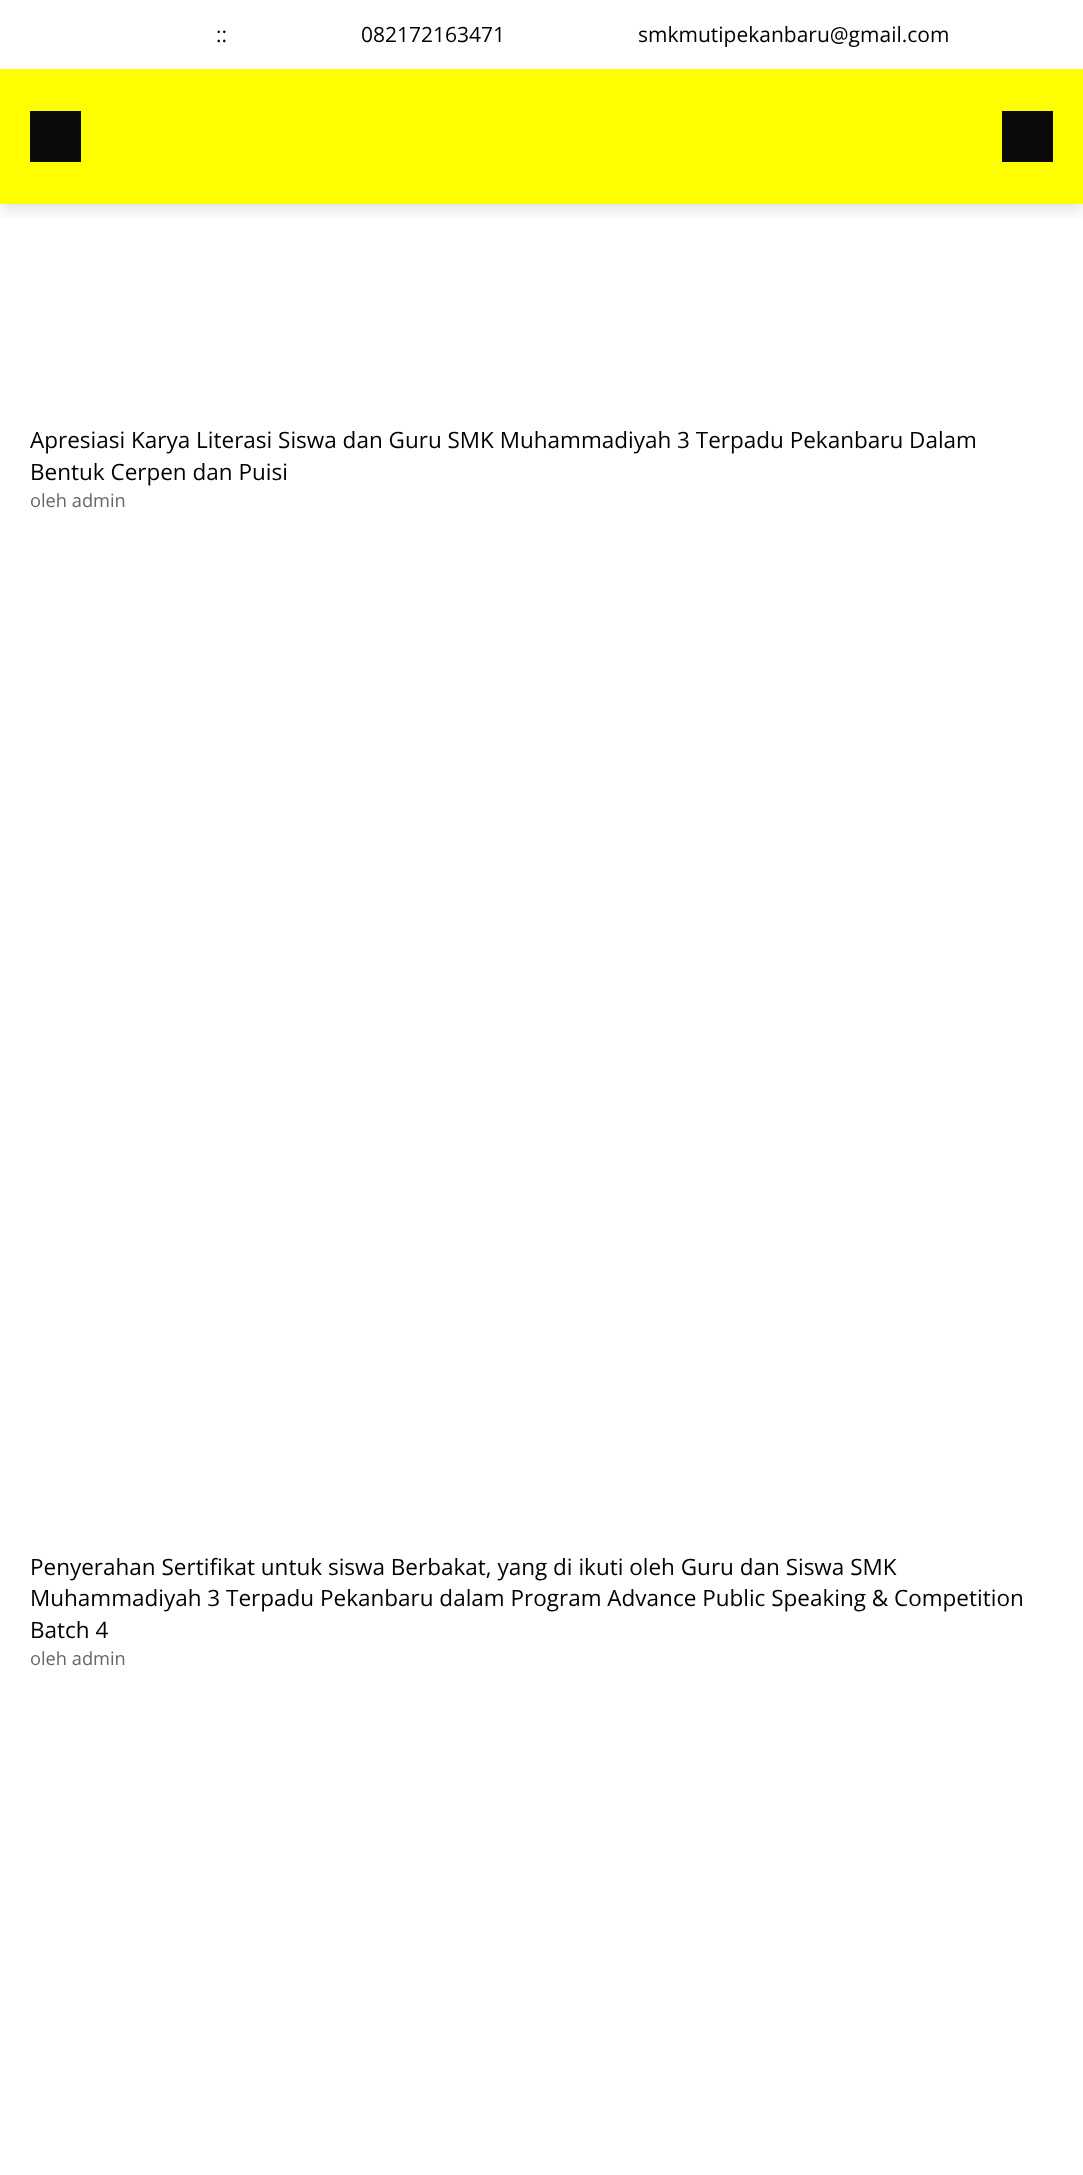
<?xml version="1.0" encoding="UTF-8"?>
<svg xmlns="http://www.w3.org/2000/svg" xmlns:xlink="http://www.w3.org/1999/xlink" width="1083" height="2175">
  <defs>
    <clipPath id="clip1"><rect x="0" y="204" width="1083" height="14" /></clipPath>
  </defs>
  <rect width="100%" height="100%" fill="#ffffff" />
  <g clip-path="url(#clip1)">
    <rect width="1083" height="204" fill="#000000" fill-opacity="0.2" filter="blur(11px)" />
  </g>
  <rect y="69" width="1083" height="135" fill="#ffff00" />
  <rect x="30" y="111" width="51" height="51" fill="#0a0a0a" />
  <rect x="1002" y="111" width="51" height="51" fill="#0a0a0a" />
  <text x="216" y="42" style="font-family: Open Sans; font-size: 21px; fill: #000000">::</text>
  <text x="361" y="42" style="font-family: Open Sans; font-size: 21px; fill: #000000">082172163471</text>
  <text x="638" y="42" style="font-family: Open Sans; font-size: 21px; fill: #000000">smkmutipekanbaru@gmail.com</text>
  <text x="30" y="448" style="font-family: Open Sans; font-size: 22.5px; fill: #000000">Apresiasi Karya Literasi Siswa dan Guru SMK Muhammadiyah 3 Terpadu Pekanbaru Dalam</text>
  <text x="30" y="480" style="font-family: Open Sans; font-size: 22.5px; fill: #000000">Bentuk Cerpen dan Puisi</text>
  <text x="30" y="507" style="font-family: Open Sans; font-size: 18.25px; fill: #666666">oleh admin</text>
  <text x="30" y="1575" style="font-family: Open Sans; font-size: 22.5px; fill: #000000">Penyerahan Sertifikat untuk siswa Berbakat, yang di ikuti oleh Guru dan Siswa SMK</text>
  <text x="30" y="1606" style="font-family: Open Sans; font-size: 22.5px; fill: #000000">Muhammadiyah 3 Terpadu Pekanbaru dalam Program Advance Public Speaking &amp; Competition</text>
  <text x="30" y="1638" style="font-family: Open Sans; font-size: 22.5px; fill: #000000">Batch 4</text>
  <text x="30" y="1665" style="font-family: Open Sans; font-size: 18.25px; fill: #666666">oleh admin</text>
</svg>
